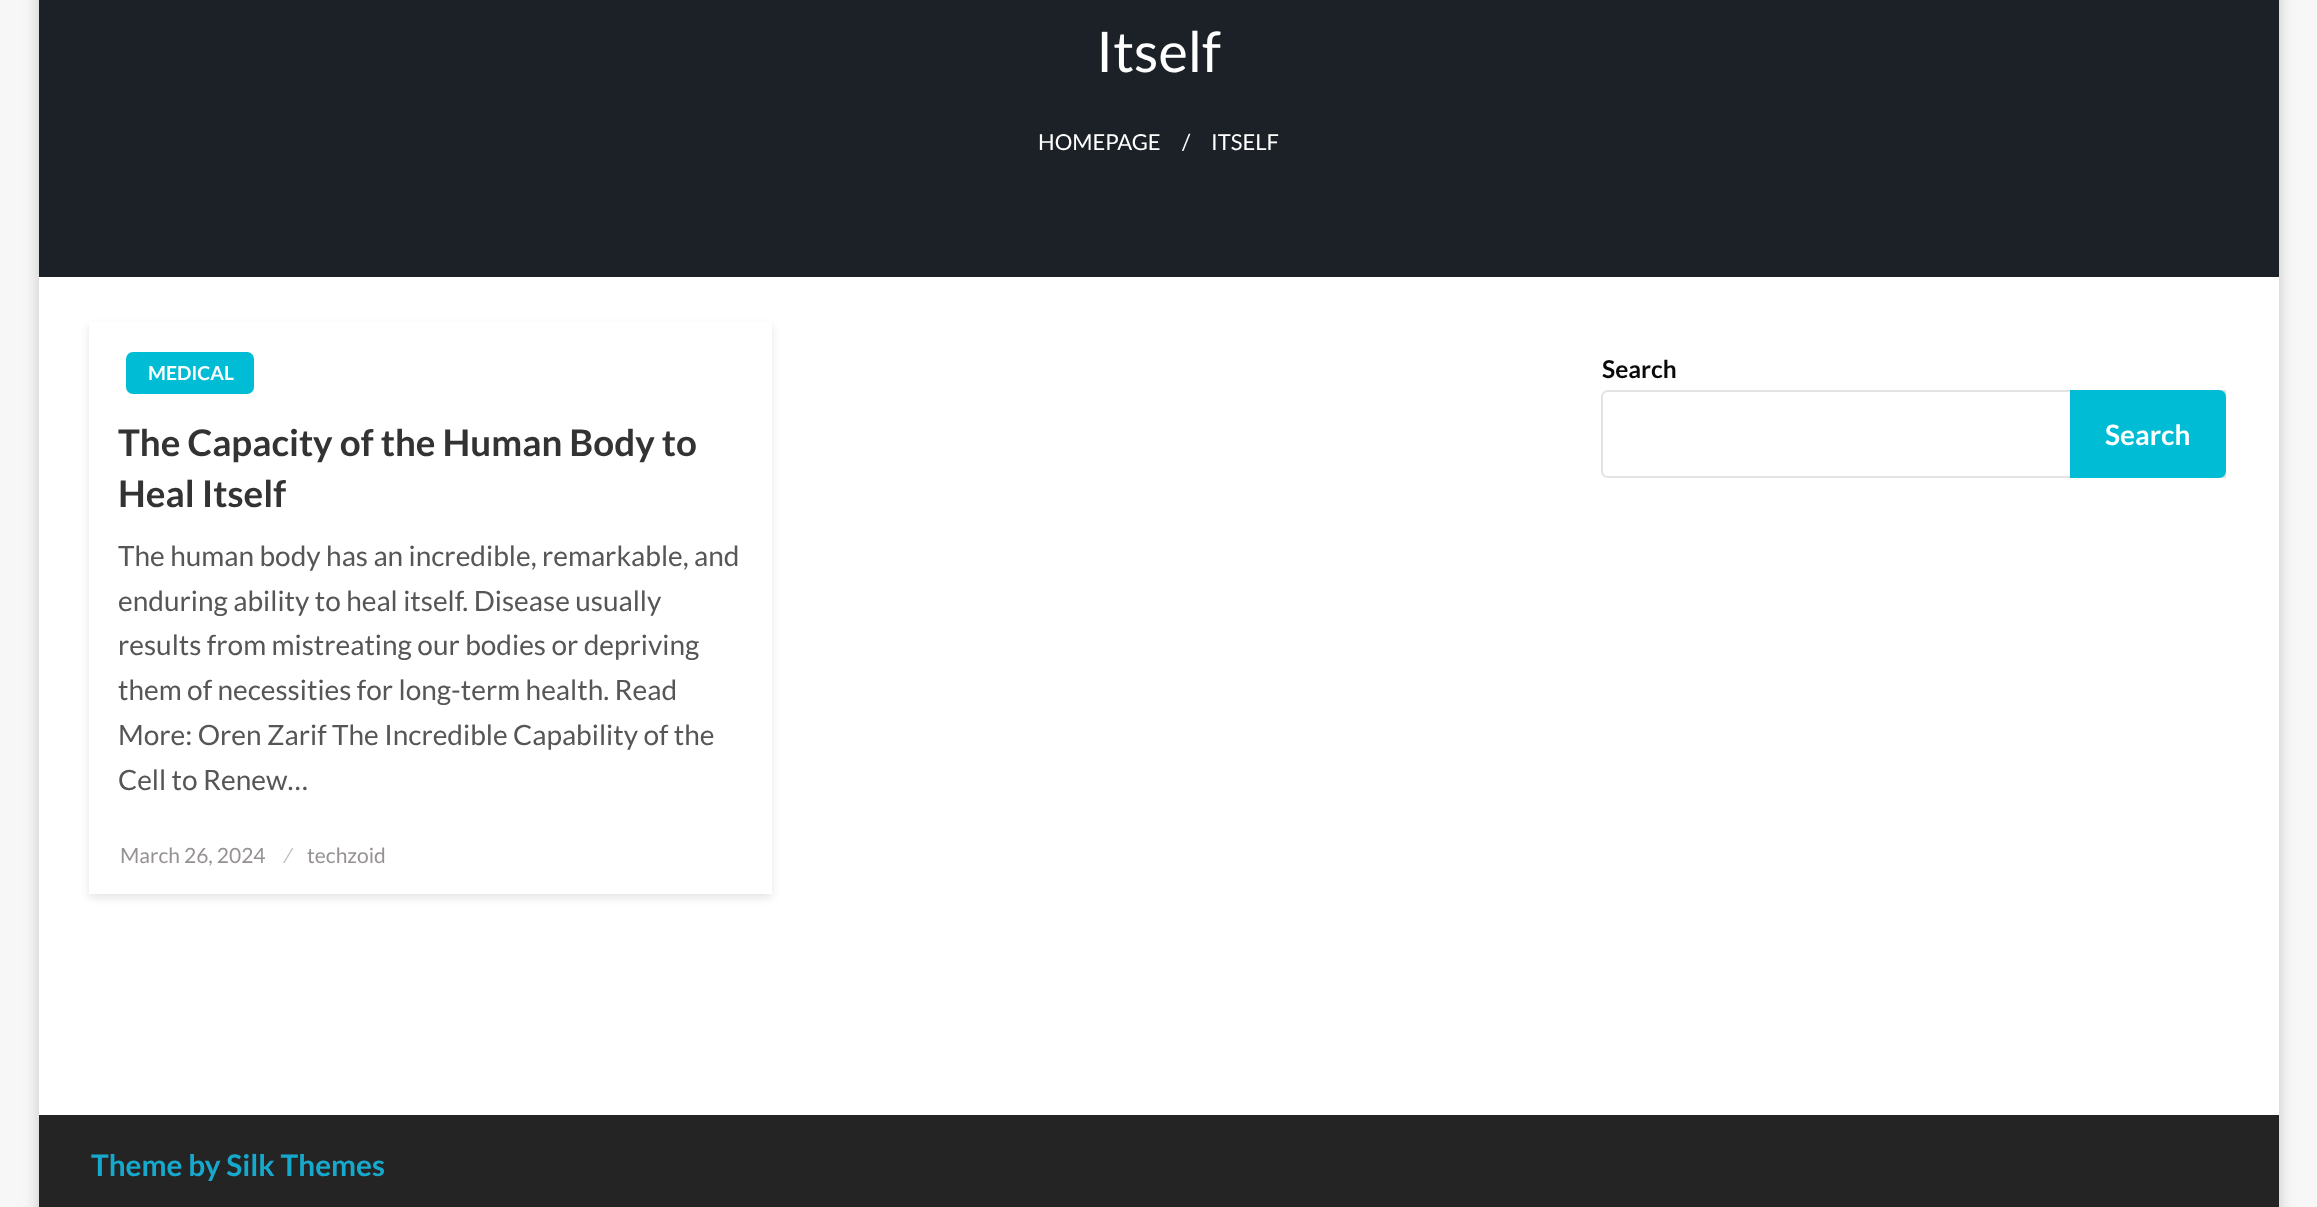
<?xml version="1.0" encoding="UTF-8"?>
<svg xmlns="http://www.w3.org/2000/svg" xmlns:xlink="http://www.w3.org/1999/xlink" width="2317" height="1207">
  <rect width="100%" height="100%" fill="#f7f7f7" />
  <rect x="39" y="-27" width="2240" height="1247" fill="#000000" fill-opacity="0.09" filter="blur(9px)" />
  <rect x="39" y="-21" width="2240" height="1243" fill="#000000" fill-opacity="0.1" filter="blur(7px)" />
  <rect x="39" y="277" width="2240" height="838" fill="#ffffff" />
  <rect x="39" width="2240" height="277" fill="#1c2127" />
  <rect x="89" y="326" width="683" height="572" fill="#000000" fill-opacity="0.1" filter="blur(4.5px)" />
  <rect x="89" y="322" width="683" height="572" fill="#ffffff" />
  <rect x="126" y="352" width="128" height="42" rx="7" fill="#00bcd4" />
  <path d="M 1608 391 h 617 v 86 h -617 c -3.5 0 -6 -2.5 -6 -6 v -74 c 0 -3.5 2.5 -6 6 -6 z" fill="none" stroke="#e4e3e3" stroke-width="2" />
  <path d="M 2070 390 h 149 c 4 0 7 3 7 7 v 74 c 0 4 -3 7 -7 7 h -149 z" fill="#00bcd4" />
  <rect x="39" y="1115" width="2240" height="92" fill="#242424" />
  <text x="1096" y="72" style="font-family: Lato; font-size: 56px; fill: #ffffff">Itself</text>
  <text x="1038" y="150" style="font-family: Lato; font-size: 22px; fill: #ffffff">HOMEPAGE</text>
  <text x="1182" y="150" style="font-family: Lato; font-size: 22px; fill: #ffffff">/</text>
  <text x="1211" y="150" style="font-family: Lato; font-size: 22px; fill: #ffffff">ITSELF</text>
  <text x="148" y="380" style="font-family: Lato; font-size: 19.25px; font-weight: bold; fill: #ffffff">MEDICAL</text>
  <text x="118" y="456" style="font-family: Lato; font-size: 36.75px; font-weight: bold; fill: #333333">The Capacity of the Human Body to</text>
  <text x="118" y="507" style="font-family: Lato; font-size: 36.75px; font-weight: bold; fill: #333333">Heal Itself</text>
  <text x="118" y="566" style="font-family: Lato; font-size: 28px; fill: #565656">The human body has an incredible, remarkable, and</text>
  <text x="118" y="611" style="font-family: Lato; font-size: 28px; fill: #565656">enduring ability to heal itself. Disease usually</text>
  <text x="118" y="655" style="font-family: Lato; font-size: 28px; fill: #565656">results from mistreating our bodies or depriving</text>
  <text x="118" y="700" style="font-family: Lato; font-size: 28px; fill: #565656">them of necessities for long-term health. Read</text>
  <text x="118" y="745" style="font-family: Lato; font-size: 28px; fill: #565656">More: Oren Zarif The Incredible Capability of the</text>
  <text x="118" y="790" style="font-family: Lato; font-size: 28px; fill: #565656">Cell to Renew…</text>
  <text x="120" y="863" style="font-family: Lato; font-size: 21px; fill: #969292">March 26, 2024</text>
  <text x="285" y="863" style="font-family: Lato; font-size: 21px; fill: #c0c0c0">⁄</text>
  <text x="307" y="863" style="font-family: Lato; font-size: 21px; fill: #969292">techzoid</text>
  <text x="1602" y="378" style="font-family: Lato; font-size: 24.5px; font-weight: bold; fill: #0a0a0a">Search</text>
  <text x="2105" y="445" style="font-family: Lato; font-size: 28px; font-weight: bold; fill: #ffffff">Search</text>
  <text x="91" y="1176" style="font-family: Lato; font-size: 29.75px; font-weight: bold; fill: #17a9cd">Theme by Silk Themes</text>
</svg>
